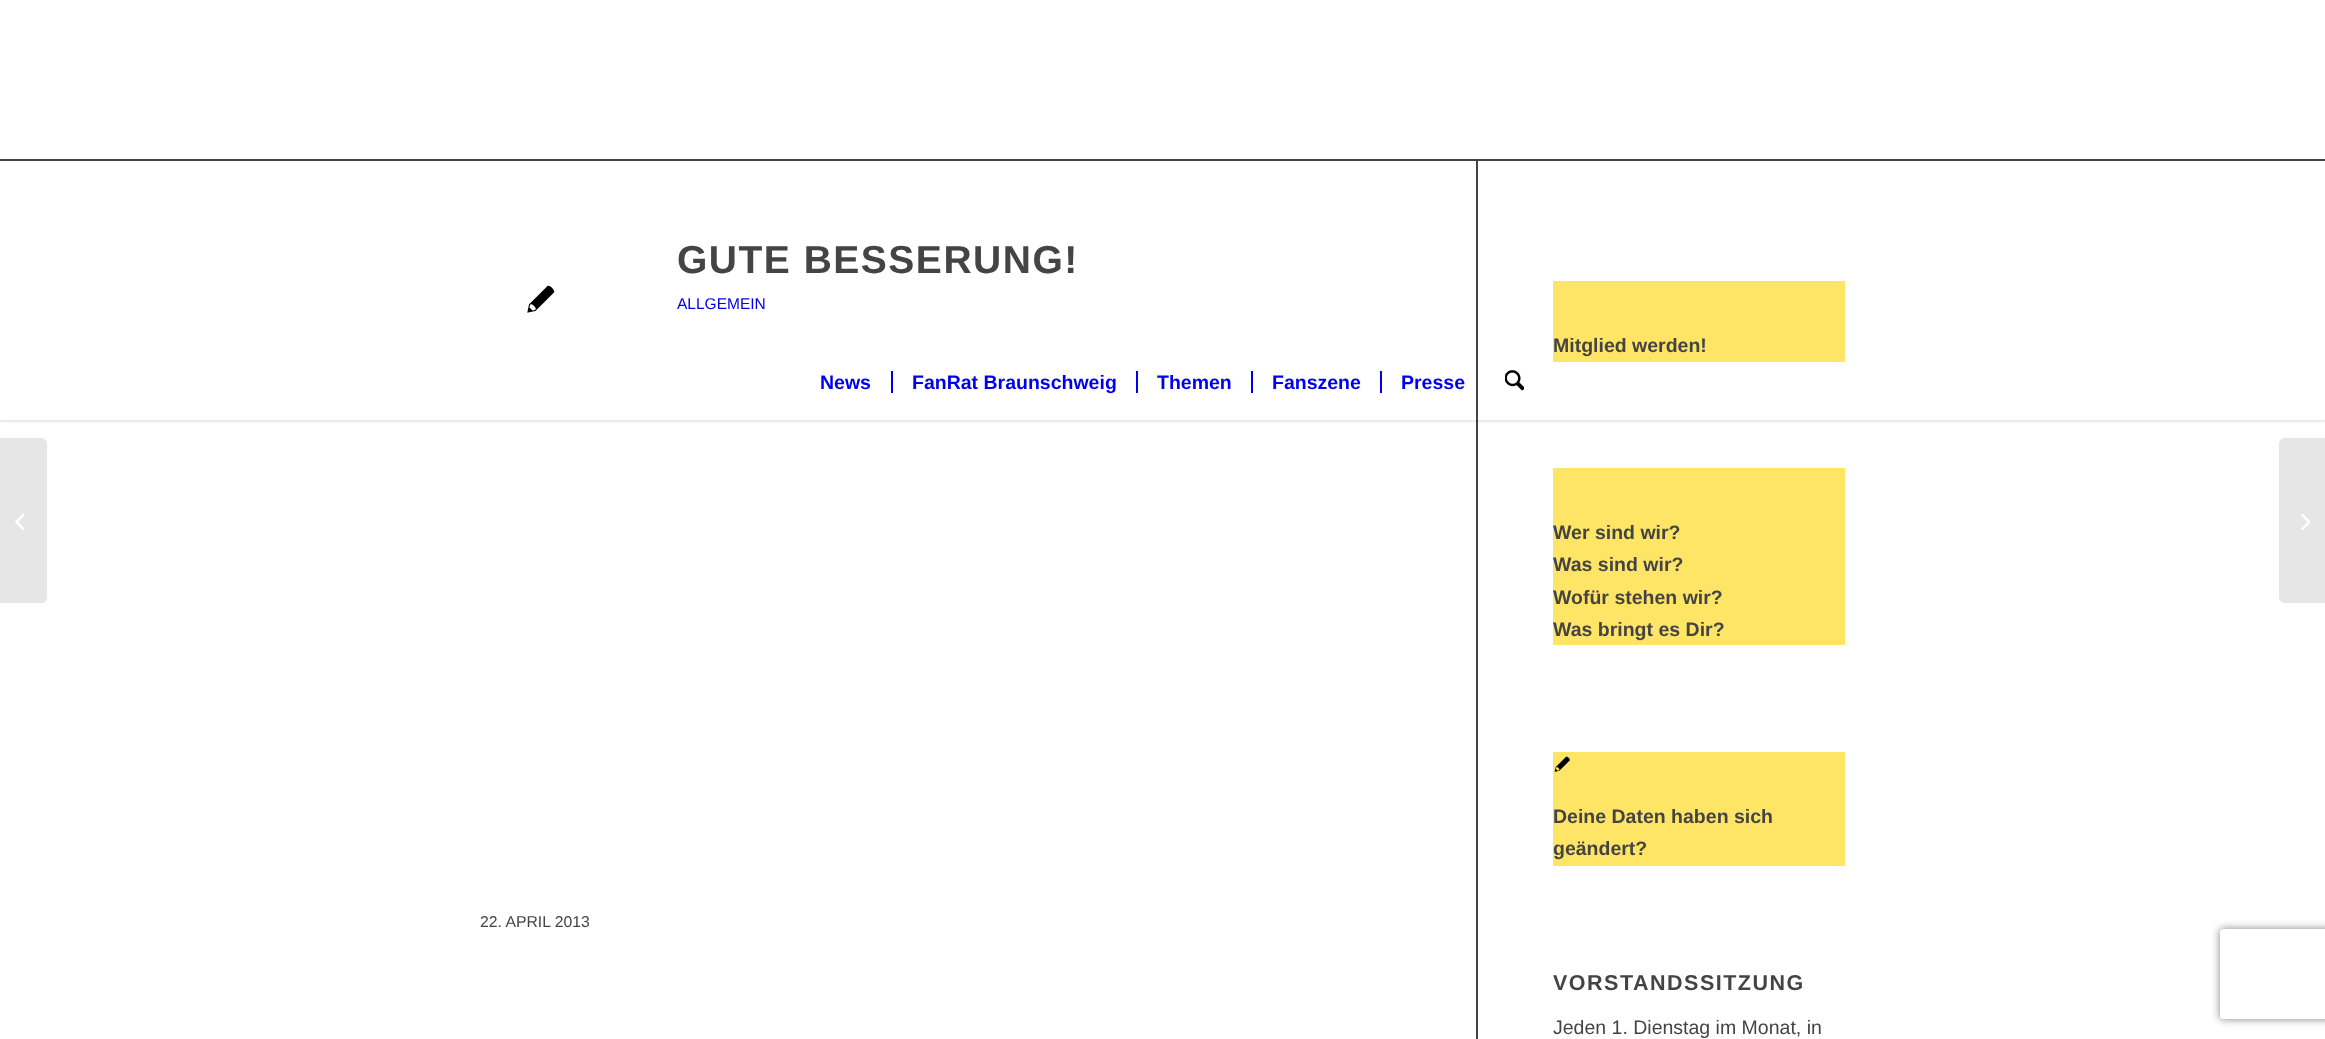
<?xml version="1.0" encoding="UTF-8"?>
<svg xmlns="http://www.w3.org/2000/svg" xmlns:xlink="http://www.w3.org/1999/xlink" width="2325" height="1039">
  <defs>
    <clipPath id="clip1"><rect x="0" y="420" width="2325" height="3" /></clipPath>
    <clipPath id="clip2"><path d="M 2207 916 h 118 v 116 h -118 z m 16 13 h 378 c 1.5 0 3 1.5 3 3 v 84 c 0 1.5 -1.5 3 -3 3 h -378 c -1.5 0 -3 -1.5 -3 -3 v -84 c 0 -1.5 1.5 -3 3 -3 z" clip-rule="evenodd" /></clipPath>
  </defs>
  <rect width="100%" height="100%" fill="#ffffff" />
  <rect y="159" width="2325" height="2" fill="#444444" />
  <rect x="1476" y="161" width="2" height="878" fill="#444444" />
  <image x="527" y="285" width="28" height="28" xlink:href="image1.png" />
  <rect x="1553" y="281" width="292" height="81" fill="#ffe566" />
  <rect x="1553" y="468" width="292" height="177" fill="#ffe566" />
  <rect x="1553" y="752" width="292" height="114" fill="#ffe566" />
  <image x="1554" y="756" width="16" height="16" xlink:href="image2.png" />
  <g clip-path="url(#clip1)">
    <rect x="-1" y="-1" width="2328" height="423" fill="#000000" fill-opacity="0.1" filter="blur(1.5px)" />
  </g>
  <rect x="891" y="371" width="2" height="22" fill="#0000ee" />
  <rect x="1136" y="371" width="2" height="22" fill="#0000ee" />
  <rect x="1251" y="371" width="2" height="22" fill="#0000ee" />
  <rect x="1380" y="371" width="2" height="22" fill="#0000ee" />
  <image x="1505" y="370" width="19" height="21" xlink:href="image3.png" />
  <path d="M 0 438 h 41 c 3.5 0 6 2.5 6 6 v 153 c 0 3.5 -2.5 6 -6 6 h -41 z" fill="#e6e6e6" />
  <image x="15" y="513" width="9" height="18" xlink:href="image4.png" />
  <path d="M 2285 438 h 40 v 165 h -40 c -3.5 0 -6 -2.5 -6 -6 v -153 c 0 -3.5 2.5 -6 6 -6 z" fill="#e6e6e6" />
  <image x="2301" y="513" width="9" height="18" xlink:href="image5.png" />
  <g clip-path="url(#clip2)">
    <rect x="2220" y="929" width="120" height="90" rx="3" fill="#808080" filter="blur(4px)" />
  </g>
  <text x="677" y="273" style="font-family: Liberation Sans; font-size: 39px; font-weight: bold; letter-spacing: 1.5px; fill: #444444">GUTE BESSERUNG!</text>
  <text x="677" y="309" style="font-family: Liberation Sans; font-size: 15.5px; fill: #0000ee">ALLGEMEIN</text>
  <text x="480" y="927" style="font-family: Liberation Sans; font-size: 15.75px; fill: #444444">22. APRIL 2013</text>
  <text x="1553" y="352" style="font-family: Liberation Sans; font-size: 19.5px; font-weight: bold; fill: #444444">Mitglied werden!</text>
  <text x="1553" y="539" style="font-family: Liberation Sans; font-size: 19.5px; font-weight: bold; fill: #444444">Wer sind wir?</text>
  <text x="1553" y="571" style="font-family: Liberation Sans; font-size: 19.5px; font-weight: bold; fill: #444444">Was sind wir?</text>
  <text x="1553" y="604" style="font-family: Liberation Sans; font-size: 19.5px; font-weight: bold; fill: #444444">Wofür stehen wir?</text>
  <text x="1553" y="636" style="font-family: Liberation Sans; font-size: 19.5px; font-weight: bold; fill: #444444">Was bringt es Dir?</text>
  <text x="1553" y="823" style="font-family: Liberation Sans; font-size: 19.5px; font-weight: bold; fill: #444444">Deine Daten haben sich</text>
  <text x="1553" y="855" style="font-family: Liberation Sans; font-size: 19.5px; font-weight: bold; fill: #444444">geändert?</text>
  <text x="1553" y="990" style="font-family: Liberation Sans; font-size: 21.5px; font-weight: bold; letter-spacing: 1.5px; fill: #444444">VORSTANDSSITZUNG</text>
  <text x="1553" y="1034" style="font-family: Liberation Sans; font-size: 19.5px; fill: #444444">Jeden 1. Dienstag im Monat, in</text>
  <text x="820" y="389" style="font-family: Liberation Sans; font-size: 19.5px; font-weight: bold; fill: #0000ee">News</text>
  <text x="912" y="389" style="font-family: Liberation Sans; font-size: 19.5px; font-weight: bold; fill: #0000ee">FanRat Braunschweig</text>
  <text x="1157" y="389" style="font-family: Liberation Sans; font-size: 19.5px; font-weight: bold; fill: #0000ee">Themen</text>
  <text x="1272" y="389" style="font-family: Liberation Sans; font-size: 19.5px; font-weight: bold; fill: #0000ee">Fanszene</text>
  <text x="1401" y="389" style="font-family: Liberation Sans; font-size: 19.5px; font-weight: bold; fill: #0000ee">Presse</text>
</svg>
